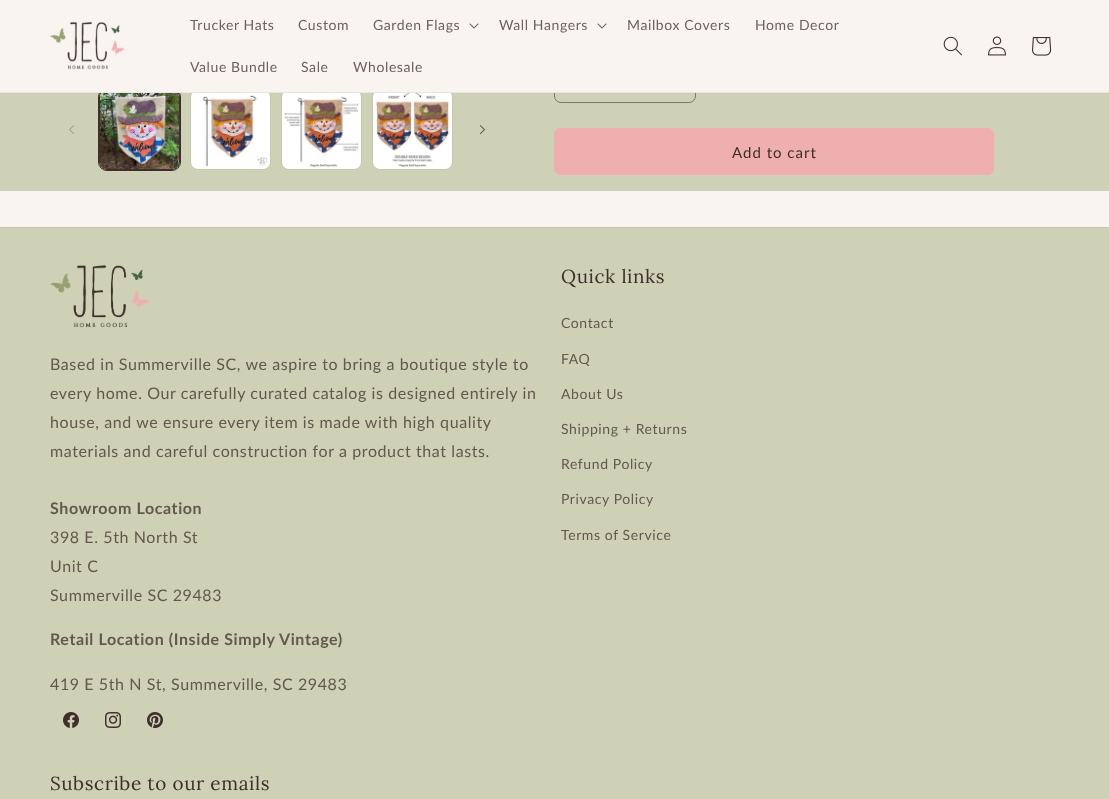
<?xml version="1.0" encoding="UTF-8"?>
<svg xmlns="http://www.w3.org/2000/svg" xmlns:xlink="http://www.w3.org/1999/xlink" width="1109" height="799">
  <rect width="100%" height="100%" fill="#ced1b6" />
  <rect x="98.5" y="88.5" width="82" height="82" rx="8.5" fill="none" stroke="#3f2e2b" />
  <rect x="99.5" y="89.5" width="80" height="80" rx="7.5" fill="none" stroke="#3f2e2b" />
  <rect x="190.5" y="89.5" width="80" height="80" rx="7.5" fill="none" stroke="#c7c9af" />
  <rect x="281.5" y="89.5" width="80" height="80" rx="7.5" fill="none" stroke="#c7c9af" />
  <rect x="372.5" y="89.5" width="80" height="80" rx="7.5" fill="none" stroke="#c7c9af" />
  <rect x="554.5" y="56.5" width="141" height="46" rx="6.5" fill="none" stroke="#7f776a" />
  <rect width="1109" height="92" fill="#f9f4ef" />
  <rect y="92" width="1109" height="1" fill="#eae4df" />
  <image x="50" y="21" width="75" height="49" xlink:href="image1.png" />
  <image x="469" y="23" width="10" height="6" xlink:href="image2.png" />
  <image x="597" y="23" width="10" height="6" xlink:href="image2.png" />
  <image x="943" y="36" width="19" height="20" xlink:href="image3.png" />
  <image x="988" y="36" width="18" height="20" xlink:href="image4.png" />
  <image x="1032" y="37" width="20" height="19" xlink:href="image5.png" />
  <image x="69" y="125" width="5" height="9" xlink:href="image6.png" />
  <image x="100" y="93" width="79" height="76" xlink:href="image7.png" />
  <image x="191" y="93" width="79" height="76" xlink:href="image8.png" />
  <image x="282" y="93" width="79" height="76" xlink:href="image9.png" />
  <image x="373" y="93" width="79" height="76" xlink:href="image10.png" />
  <image x="480" y="125" width="5" height="10" xlink:href="image11.png" />
  <rect x="554" y="128" width="440" height="47" rx="7" fill="#efafae" />
  <rect x="554.5" y="128.5" width="439" height="46" rx="6.5" fill="none" stroke="#efafae" />
  <rect y="191" width="1109" height="36" fill="#f9f4ef" />
  <rect y="227" width="1109" height="1" fill="#c3c4ab" />
  <image x="50" y="265" width="100" height="63" xlink:href="image12.png" />
  <image x="63" y="712" width="16" height="16" xlink:href="image13.png" />
  <image x="105" y="712" width="16" height="16" xlink:href="image14.png" />
  <image x="147" y="712" width="16" height="16" xlink:href="image15.png" />
  <text x="190" y="30" style="font-family: Lato; font-size: 14px; letter-spacing: 0.6px; fill: #6e605c">Trucker Hats</text>
  <text x="298" y="30" style="font-family: Lato; font-size: 14px; letter-spacing: 0.6px; fill: #6e605c">Custom</text>
  <text x="373" y="30" style="font-family: Lato; font-size: 14px; letter-spacing: 0.6px; fill: #6e605c">Garden Flags</text>
  <text x="499" y="30" style="font-family: Lato; font-size: 14px; letter-spacing: 0.6px; fill: #6e605c">Wall Hangers</text>
  <text x="627" y="30" style="font-family: Lato; font-size: 14px; letter-spacing: 0.6px; fill: #6e605c">Mailbox Covers</text>
  <text x="755" y="30" style="font-family: Lato; font-size: 14px; letter-spacing: 0.6px; fill: #6e605c">Home Decor</text>
  <text x="190" y="72" style="font-family: Lato; font-size: 14px; letter-spacing: 0.6px; fill: #6e605c">Value Bundle</text>
  <text x="301" y="72" style="font-family: Lato; font-size: 14px; letter-spacing: 0.6px; fill: #6e605c">Sale</text>
  <text x="353" y="72" style="font-family: Lato; font-size: 14px; letter-spacing: 0.6px; fill: #6e605c">Wholesale</text>
  <text x="732" y="158" style="font-family: Lato; font-size: 15px; letter-spacing: 1px; fill: #3f2e2b">Add to cart</text>
  <text x="50" y="370" style="font-family: Lato; font-size: 16px; letter-spacing: 0.6px; fill: #63574e">Based in Summerville SC, we aspire to bring a boutique style to</text>
  <text x="50" y="399" style="font-family: Lato; font-size: 16px; letter-spacing: 0.6px; fill: #63574e">every home. Our carefully curated catalog is designed entirely in</text>
  <text x="50" y="428" style="font-family: Lato; font-size: 16px; letter-spacing: 0.6px; fill: #63574e">house, and we ensure every item is made with high quality</text>
  <text x="50" y="457" style="font-family: Lato; font-size: 16px; letter-spacing: 0.6px; fill: #63574e">materials and careful construction for a product that lasts.</text>
  <text x="50" y="514" style="font-family: Lato; font-size: 16px; font-weight: bold; letter-spacing: 0.6px; fill: #63574e">Showroom Location</text>
  <text x="50" y="543" style="font-family: Lato; font-size: 16px; letter-spacing: 0.6px; fill: #63574e">398 E. 5th North St</text>
  <text x="50" y="572" style="font-family: Lato; font-size: 16px; letter-spacing: 0.6px; fill: #63574e">Unit C</text>
  <text x="50" y="601" style="font-family: Lato; font-size: 16px; letter-spacing: 0.6px; fill: #63574e">Summerville SC 29483</text>
  <text x="50" y="645" style="font-family: Lato; font-size: 16px; font-weight: bold; letter-spacing: 0.6px; fill: #63574e">Retail Location (Inside Simply Vintage)</text>
  <text x="50" y="690" style="font-family: Lato; font-size: 16px; letter-spacing: 0.6px; fill: #63574e">419 E 5th N St, Summerville, SC 29483</text>
  <text x="561" y="283" style="font-family: Lora; font-size: 18.9px; letter-spacing: 0.6px; fill: #3f2e2b">Quick links</text>
  <text x="561" y="328" style="font-family: Lato; font-size: 14px; letter-spacing: 0.6px; fill: #63574e">Contact</text>
  <text x="561" y="364" style="font-family: Lato; font-size: 14px; letter-spacing: 0.6px; fill: #63574e">FAQ</text>
  <text x="561" y="399" style="font-family: Lato; font-size: 14px; letter-spacing: 0.6px; fill: #63574e">About Us</text>
  <text x="561" y="434" style="font-family: Lato; font-size: 14px; letter-spacing: 0.6px; fill: #63574e">Shipping + Returns</text>
  <text x="561" y="469" style="font-family: Lato; font-size: 14px; letter-spacing: 0.6px; fill: #63574e">Refund Policy</text>
  <text x="561" y="504" style="font-family: Lato; font-size: 14px; letter-spacing: 0.6px; fill: #63574e">Privacy Policy</text>
  <text x="561" y="540" style="font-family: Lato; font-size: 14px; letter-spacing: 0.6px; fill: #63574e">Terms of Service</text>
  <text x="50" y="790" style="font-family: Lora; font-size: 18.9px; letter-spacing: 0.6px; fill: #3f2e2b">Subscribe to our emails</text>
</svg>
